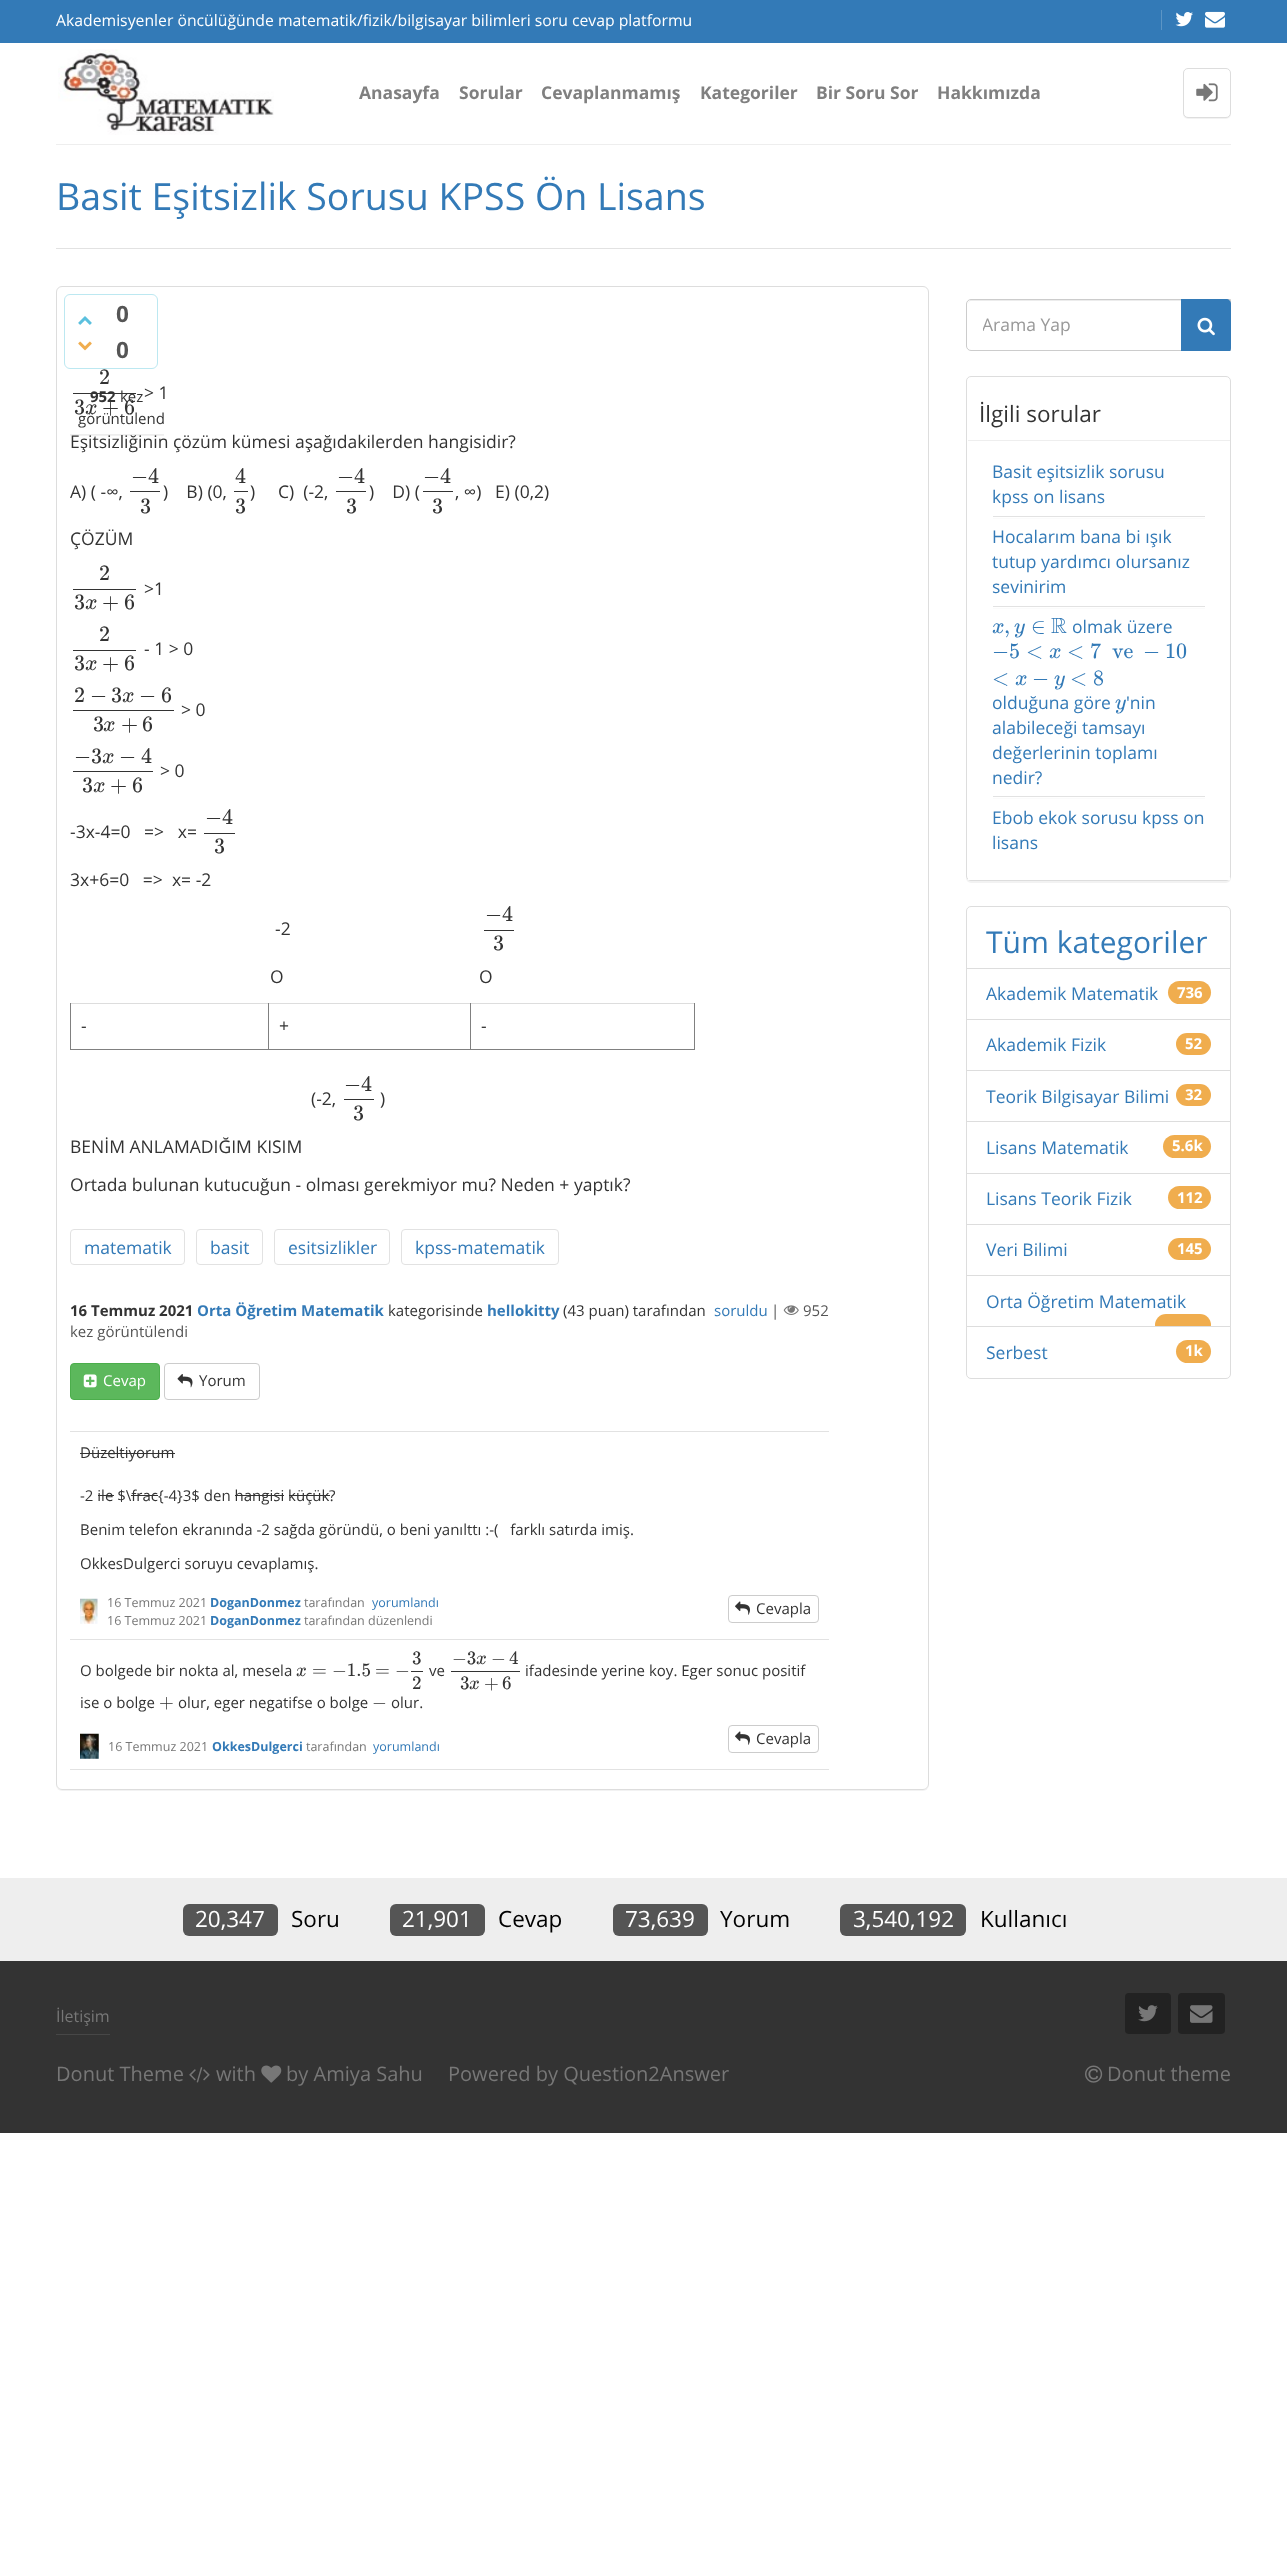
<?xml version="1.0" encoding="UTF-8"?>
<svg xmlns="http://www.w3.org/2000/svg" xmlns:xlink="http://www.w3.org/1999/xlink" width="1287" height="2560">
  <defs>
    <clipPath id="clip1"><path d="M 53 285 h 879 v 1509 h -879 z m 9 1 h 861 c 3.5 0 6 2.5 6 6 v 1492 c 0 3.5 -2.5 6 -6 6 h -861 c -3.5 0 -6 -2.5 -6 -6 v -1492 c 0 -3.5 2.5 -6 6 -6 z" clip-rule="evenodd" /></clipPath>
    <clipPath id="clip2"><rect x="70" y="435" width="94" height="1" /></clipPath>
    <clipPath id="clip3"><rect x="966" y="299" width="265" height="52" /></clipPath>
    <clipPath id="clip4"><rect x="983" y="313" width="191" height="23" /></clipPath>
  </defs>
  <rect width="100%" height="100%" fill="#ffffff" />
  <rect width="1287" height="43" fill="#337ab7" />
  <rect x="1161" y="10" width="1" height="20" fill="#5c95c5" />
  <image x="1175" y="12" width="18" height="15" xlink:href="image1.png" />
  <image x="1205" y="11" width="20" height="17" xlink:href="image2.png" />
  <image x="58" y="49" width="216" height="86" xlink:href="image3.png" />
  <rect x="1183" y="69" width="48" height="50" rx="5" fill="#000000" fill-opacity="0.05" filter="blur(0.5px)" />
  <rect x="1183.5" y="68.5" width="47" height="49" rx="4.5" fill="#ffffff" stroke="#dddddd" />
  <image x="1196" y="83" width="22" height="19" xlink:href="image4.png" />
  <rect x="56" y="144" width="1175" height="1" fill="#eeeeee" />
  <rect x="56" y="248" width="1175" height="1" fill="#e2e2e2" />
  <g clip-path="url(#clip1)">
    <rect x="56" y="288" width="873" height="1503" rx="6" fill="#000000" fill-opacity="0.05" filter="blur(0.5px)" />
  </g>
  <rect x="56.5" y="286.5" width="872" height="1503" rx="5.5" fill="none" stroke="#dddddd" />
  <rect x="64.5" y="294.5" width="93" height="74" rx="5.5" fill="none" stroke="#bce8f1" />
  <image x="78" y="316" width="14" height="9" xlink:href="image5.png" />
  <image x="78" y="341" width="14" height="10" xlink:href="image6.png" />
  <g clip-path="url(#clip2)">
    <rect x="70" y="383" width="94" height="53" fill="#000000" fill-opacity="0.05" filter="blur(0.5px)" />
  </g>
  <rect x="73" y="393" width="63" height="1" fill="#333333" />
  <rect x="130" y="491" width="30" height="1" fill="#333333" />
  <rect x="234" y="491" width="14" height="1" fill="#333333" />
  <rect x="336" y="491" width="30" height="1" fill="#333333" />
  <rect x="423" y="491" width="30" height="1" fill="#333333" />
  <rect x="73" y="589" width="63" height="1" fill="#333333" />
  <rect x="73" y="650" width="63" height="1" fill="#333333" />
  <rect x="73" y="710" width="101" height="1" fill="#333333" />
  <rect x="73" y="771" width="80" height="1" fill="#333333" />
  <rect x="204" y="833" width="31" height="1" fill="#333333" />
  <rect x="484" y="930" width="30" height="1" fill="#333333" />
  <rect x="70" y="1049" width="625" height="1" fill="#808080" />
  <rect x="70" y="1003" width="625" height="1" fill="#dddddd" />
  <rect x="268" y="1003" width="1" height="47" fill="#808080" />
  <rect x="70" y="1003" width="1" height="47" fill="#808080" />
  <rect x="470" y="1003" width="1" height="47" fill="#808080" />
  <rect x="694" y="1003" width="1" height="47" fill="#808080" />
  <rect x="344" y="1099" width="30" height="1" fill="#333333" />
  <rect x="70.5" y="1229.5" width="114" height="35" rx="3.5" fill="none" stroke="#e2e2e2" />
  <rect x="196.5" y="1229.5" width="66" height="35" rx="3.5" fill="none" stroke="#e2e2e2" />
  <rect x="274.5" y="1229.5" width="115" height="35" rx="3.5" fill="none" stroke="#e2e2e2" />
  <rect x="401.5" y="1229.5" width="157" height="35" rx="3.5" fill="none" stroke="#e2e2e2" />
  <image x="783" y="1305" width="16" height="10" xlink:href="image7.png" />
  <rect x="70.5" y="1363.5" width="89" height="36" rx="3.5" fill="#5cb85c" stroke="#4cae4c" />
  <image x="83" y="1374" width="14" height="14" xlink:href="image8.png" />
  <rect x="164.5" y="1363.5" width="95" height="36" rx="3.5" fill="none" stroke="#cccccc" />
  <image x="177" y="1374" width="16" height="14" xlink:href="image9.png" />
  <rect x="70" y="1431" width="759" height="1" fill="#e2e2e2" />
  <rect x="70" y="1639" width="759" height="1" fill="#e2e2e2" />
  <rect x="80" y="1453" width="95" height="1" fill="#333333" />
  <rect x="98" y="1495" width="16" height="1" fill="#333333" />
  <rect x="131" y="1495" width="27" height="1" fill="#333333" />
  <rect x="235" y="1495" width="49" height="1" fill="#333333" />
  <rect x="289" y="1495" width="41" height="1" fill="#333333" />
  <image x="80" y="1598" width="18" height="26" xlink:href="image10.png" />
  <rect x="728.5" y="1595.5" width="90" height="27" rx="3.5" fill="none" stroke="#cccccc" />
  <image x="735" y="1601" width="15" height="14" xlink:href="image11.png" />
  <rect x="70" y="1769" width="759" height="1" fill="#e2e2e2" />
  <rect x="411" y="1671" width="12" height="1" fill="#333333" />
  <rect x="451" y="1671" width="69" height="1" fill="#333333" />
  <image x="80" y="1733" width="19" height="26" xlink:href="image12.png" />
  <rect x="728.5" y="1725.5" width="90" height="27" rx="3.5" fill="none" stroke="#cccccc" />
  <image x="735" y="1731" width="15" height="14" xlink:href="image11.png" />
  <path d="M 971 301 h 259 v -1 h -258 c -3 0 -4 2 -4 5 c 0 -2 1 -4 3 -4 z" fill="#ececec" />
  <path d="M 971 299.5 h 259.5 v 51 h -259.5 c -2.5 0 -4.5 -2 -4.5 -4.5 v -42 c 0 -2.5 2 -4.5 4.5 -4.5 z" fill="none" stroke="#cccccc" />
  <g clip-path="url(#clip3)">
    <path d="M 1181 299 h 45 c 3 0 5 2 5 5 v 44 c 0 3 -2 5 -5 5 h -45 z" fill="#337ab7" />
  </g>
  <image x="1197" y="317" width="18" height="19" xlink:href="image13.png" />
  <rect x="966" y="378" width="265" height="505" rx="5" fill="#000000" fill-opacity="0.05" filter="blur(0.5px)" />
  <rect x="966.5" y="376.5" width="264" height="504" rx="4.5" fill="#ffffff" stroke="#dddddd" />
  <rect x="968" y="877" width="262" height="3" fill="#ffffff" />
  <rect x="968" y="440" width="262" height="1" fill="#eeeeee" />
  <rect x="993" y="516" width="212" height="1" fill="#e2e2e2" />
  <rect x="993" y="518" width="212" height="1" fill="#fbfbfb" />
  <rect x="993" y="606" width="212" height="1" fill="#e2e2e2" />
  <rect x="993" y="608" width="212" height="1" fill="#fbfbfb" />
  <rect x="993" y="796" width="212" height="1" fill="#e2e2e2" />
  <rect x="993" y="798" width="212" height="1" fill="#fbfbfb" />
  <path d="M 971 906.5 h 255 c 2.5 0 4.5 2 4.5 4.5 v 57.5 h -264 v -57.5 c 0 -2.5 2 -4.5 4.5 -4.5 z" fill="none" stroke="#dddddd" />
  <rect x="966.5" y="968.5" width="264" height="51" fill="none" stroke="#dddddd" />
  <rect x="1168" y="981" width="43" height="23" rx="11.5" fill="#f0ad4e" />
  <rect x="966.5" y="1019.5" width="264" height="51" fill="none" stroke="#dddddd" />
  <rect x="1176" y="1033" width="35" height="22" rx="11" fill="#f0ad4e" />
  <rect x="966.5" y="1070.5" width="264" height="52" fill="none" stroke="#dddddd" />
  <rect x="1176" y="1084" width="35" height="22" rx="11" fill="#f0ad4e" />
  <rect x="967" y="1122" width="263" height="1" fill="#ffffff" />
  <rect x="966.5" y="1121.5" width="264" height="52" fill="none" stroke="#dddddd" />
  <rect x="1163" y="1135" width="48" height="23" rx="11.5" fill="#f0ad4e" />
  <rect x="966.5" y="1173.5" width="264" height="51" fill="none" stroke="#dddddd" />
  <rect x="1168" y="1186" width="43" height="23" rx="11.5" fill="#f0ad4e" />
  <rect x="966.5" y="1224.5" width="264" height="51" fill="none" stroke="#dddddd" />
  <rect x="1168" y="1238" width="43" height="22" rx="11" fill="#f0ad4e" />
  <rect x="966.5" y="1275.5" width="264" height="52" fill="none" stroke="#dddddd" />
  <rect x="1155" y="1314" width="56" height="22" rx="11" fill="#f0ad4e" />
  <path d="M 966.5 1326.5 h 264 v 47.5 c 0 2.5 -2 4.5 -4.5 4.5 h -255 c -2.5 0 -4.5 -2 -4.5 -4.5 z" fill="#ffffff" stroke="#dddddd" />
  <rect x="1176" y="1340" width="35" height="23" rx="11.5" fill="#f0ad4e" />
  <rect y="1878" width="1287" height="83" fill="#eeeeee" />
  <rect x="183" y="1904" width="95" height="32" rx="6" fill="#555555" />
  <rect x="390" y="1904" width="95" height="32" rx="6" fill="#555555" />
  <rect x="613" y="1904" width="95" height="32" rx="6" fill="#555555" />
  <rect x="840" y="1904" width="126" height="32" rx="6" fill="#555555" />
  <rect y="1961" width="1287" height="172" fill="#333333" />
  <rect x="56" y="2034" width="54" height="1" fill="#474747" />
  <rect x="1125" y="1993" width="46" height="41" rx="4" fill="#222222" />
  <image x="1138" y="2005" width="20" height="17" xlink:href="image14.png" />
  <rect x="1178" y="1993" width="47" height="41" rx="4" fill="#222222" />
  <image x="1190" y="2005" width="23" height="18" xlink:href="image15.png" />
  <image x="189" y="2067" width="21" height="16" xlink:href="image16.png" />
  <image x="261" y="2065" width="21" height="18" xlink:href="image17.png" />
  <image x="1085" y="2065" width="18" height="18" xlink:href="image18.png" />
  <text x="56" y="26" style="font-family: Open Sans; font-size: 15.75px; fill: #ffffff">Akademisyenler öncülüğünde matematik/fizik/bilgisayar bilimleri soru cevap platformu</text>
  <text x="359" y="99" style="font-family: Open Sans; font-size: 17.5px; font-weight: bold; fill: #808080">Anasayfa</text>
  <text x="459" y="99" style="font-family: Open Sans; font-size: 17.5px; font-weight: bold; fill: #808080">Sorular</text>
  <text x="541" y="99" style="font-family: Open Sans; font-size: 17.5px; font-weight: bold; fill: #808080">Cevaplanmamış</text>
  <text x="700" y="99" style="font-family: Open Sans; font-size: 17.5px; font-weight: bold; fill: #808080">Kategoriler</text>
  <text x="816" y="99" style="font-family: Open Sans; font-size: 17.5px; font-weight: bold; fill: #808080">Bir Soru Sor</text>
  <text x="937" y="99" style="font-family: Open Sans; font-size: 17.5px; font-weight: bold; fill: #808080">Hakkımızda</text>
  <text x="56" y="210" style="font-family: Open Sans; font-size: 37.5px; fill: #337ab7">Basit Eşitsizlik Sorusu KPSS Ön Lisans</text>
  <text x="116" y="322" style="font-family: Open Sans; font-size: 22.5px; font-weight: bold; fill: #555555">0</text>
  <text x="116" y="358" style="font-family: Open Sans; font-size: 22.5px; font-weight: bold; fill: #555555">0</text>
  <text x="99" y="384" style="font-family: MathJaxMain; font-size: 22px; fill: #333333">2</text>
  <text x="74" y="414" style="font-family: MathJaxMain; font-size: 22px; fill: #333333">3</text>
  <text x="85" y="414" style="font-family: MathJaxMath; font-size: 22px; font-style: italic; fill: #333333">x</text>
  <text x="102" y="414" style="font-family: MathJaxMain; font-size: 22px; fill: #333333">+</text>
  <text x="124" y="414" style="font-family: MathJaxMain; font-size: 22px; fill: #333333">6</text>
  <text x="144" y="399" style="font-family: Open Sans; font-size: 17.5px; fill: #333333">&gt; 1</text>
  <text x="70" y="448" style="font-family: Open Sans; font-size: 17.5px; fill: #333333">Eşitsizliğinin çözüm kümesi aşağıdakilerden hangisidir?</text>
  <text x="70" y="498" style="font-family: Open Sans; font-size: 17.5px; fill: #333333">A) ( -∞,</text>
  <text x="131" y="483" style="font-family: MathJaxMain; font-size: 22px; fill: #333333">−4</text>
  <text x="140" y="513" style="font-family: MathJaxMain; font-size: 22px; fill: #333333">3</text>
  <text x="163" y="498" style="font-family: Open Sans; font-size: 17.5px; fill: #333333" xml:space="preserve">)    B) (0,</text>
  <text x="235" y="483" style="font-family: MathJaxMain; font-size: 22px; fill: #333333">4</text>
  <text x="235" y="513" style="font-family: MathJaxMain; font-size: 22px; fill: #333333">3</text>
  <text x="250" y="498" style="font-family: Open Sans; font-size: 17.5px; fill: #333333" xml:space="preserve">)     C)  (-2,</text>
  <text x="337" y="483" style="font-family: MathJaxMain; font-size: 22px; fill: #333333">−4</text>
  <text x="346" y="513" style="font-family: MathJaxMain; font-size: 22px; fill: #333333">3</text>
  <text x="369" y="498" style="font-family: Open Sans; font-size: 17.5px; fill: #333333" xml:space="preserve">)    D) (</text>
  <text x="423" y="483" style="font-family: MathJaxMain; font-size: 22px; fill: #333333">−4</text>
  <text x="432" y="513" style="font-family: MathJaxMain; font-size: 22px; fill: #333333">3</text>
  <text x="455" y="498" style="font-family: Open Sans; font-size: 17.5px; fill: #333333" xml:space="preserve">, ∞)   E) (0,2)</text>
  <text x="70" y="545" style="font-family: Open Sans; font-size: 17.5px; fill: #333333">ÇÖZÜM</text>
  <text x="99" y="580" style="font-family: MathJaxMain; font-size: 22px; fill: #333333">2</text>
  <text x="74" y="609" style="font-family: MathJaxMain; font-size: 22px; fill: #333333">3</text>
  <text x="85" y="609" style="font-family: MathJaxMath; font-size: 22px; font-style: italic; fill: #333333">x</text>
  <text x="102" y="609" style="font-family: MathJaxMain; font-size: 22px; fill: #333333">+</text>
  <text x="124" y="609" style="font-family: MathJaxMain; font-size: 22px; fill: #333333">6</text>
  <text x="144" y="595" style="font-family: Open Sans; font-size: 17.5px; fill: #333333">&gt;1</text>
  <text x="99" y="641" style="font-family: MathJaxMain; font-size: 22px; fill: #333333">2</text>
  <text x="74" y="670" style="font-family: MathJaxMain; font-size: 22px; fill: #333333">3</text>
  <text x="85" y="670" style="font-family: MathJaxMath; font-size: 22px; font-style: italic; fill: #333333">x</text>
  <text x="102" y="670" style="font-family: MathJaxMain; font-size: 22px; fill: #333333">+</text>
  <text x="124" y="670" style="font-family: MathJaxMain; font-size: 22px; fill: #333333">6</text>
  <text x="144" y="655" style="font-family: Open Sans; font-size: 17.5px; fill: #333333">- 1 &gt; 0</text>
  <text x="74" y="702" style="font-family: MathJaxMain; font-size: 22px; fill: #333333">2</text>
  <text x="90" y="702" style="font-family: MathJaxMain; font-size: 22px; fill: #333333">−</text>
  <text x="111" y="702" style="font-family: MathJaxMain; font-size: 22px; fill: #333333">3</text>
  <text x="122" y="702" style="font-family: MathJaxMath; font-size: 22px; font-style: italic; fill: #333333">x</text>
  <text x="139" y="702" style="font-family: MathJaxMain; font-size: 22px; fill: #333333">−</text>
  <text x="161" y="702" style="font-family: MathJaxMain; font-size: 22px; fill: #333333">6</text>
  <text x="93" y="731" style="font-family: MathJaxMain; font-size: 22px; fill: #333333">3</text>
  <text x="103" y="731" style="font-family: MathJaxMath; font-size: 22px; font-style: italic; fill: #333333">x</text>
  <text x="121" y="731" style="font-family: MathJaxMain; font-size: 22px; fill: #333333">+</text>
  <text x="142" y="731" style="font-family: MathJaxMain; font-size: 22px; fill: #333333">6</text>
  <text x="181" y="716" style="font-family: Open Sans; font-size: 17.5px; fill: #333333">&gt; 0</text>
  <text x="74" y="763" style="font-family: MathJaxMain; font-size: 22px; fill: #333333">−3</text>
  <text x="102" y="763" style="font-family: MathJaxMath; font-size: 22px; font-style: italic; fill: #333333">x</text>
  <text x="119" y="763" style="font-family: MathJaxMain; font-size: 22px; fill: #333333">−</text>
  <text x="141" y="763" style="font-family: MathJaxMain; font-size: 22px; fill: #333333">4</text>
  <text x="82" y="792" style="font-family: MathJaxMain; font-size: 22px; fill: #333333">3</text>
  <text x="93" y="792" style="font-family: MathJaxMath; font-size: 22px; font-style: italic; fill: #333333">x</text>
  <text x="110" y="792" style="font-family: MathJaxMain; font-size: 22px; fill: #333333">+</text>
  <text x="132" y="792" style="font-family: MathJaxMain; font-size: 22px; fill: #333333">6</text>
  <text x="160" y="777" style="font-family: Open Sans; font-size: 17.5px; fill: #333333">&gt; 0</text>
  <text x="70" y="838" style="font-family: Open Sans; font-size: 17.5px; fill: #333333" xml:space="preserve">-3x-4=0   =&gt;   x=</text>
  <text x="205" y="824" style="font-family: MathJaxMain; font-size: 22px; fill: #333333">−4</text>
  <text x="214" y="853" style="font-family: MathJaxMain; font-size: 22px; fill: #333333">3</text>
  <text x="70" y="886" style="font-family: Open Sans; font-size: 17.5px; fill: #333333" xml:space="preserve">3x+6=0   =&gt;  x= -2</text>
  <text x="275" y="935" style="font-family: Open Sans; font-size: 17.5px; fill: #333333">-2</text>
  <text x="485" y="921" style="font-family: MathJaxMain; font-size: 22px; fill: #333333">−4</text>
  <text x="493" y="950" style="font-family: MathJaxMain; font-size: 22px; fill: #333333">3</text>
  <text x="270" y="983" style="font-family: Open Sans; font-size: 17.5px; fill: #333333" xml:space="preserve">O                                           O</text>
  <text x="81" y="1032" style="font-family: Open Sans; font-size: 17.5px; fill: #333333">-</text>
  <text x="279" y="1032" style="font-family: Open Sans; font-size: 17.5px; fill: #333333">+</text>
  <text x="481" y="1032" style="font-family: Open Sans; font-size: 17.5px; fill: #333333">-</text>
  <text x="311" y="1105" style="font-family: Open Sans; font-size: 17.5px; fill: #333333">(-2,</text>
  <text x="344" y="1091" style="font-family: MathJaxMain; font-size: 22px; fill: #333333">−4</text>
  <text x="353" y="1120" style="font-family: MathJaxMain; font-size: 22px; fill: #333333">3</text>
  <text x="380" y="1105" style="font-family: Open Sans; font-size: 17.5px; fill: #333333">)</text>
  <text x="70" y="1153" style="font-family: Open Sans; font-size: 17.5px; fill: #333333">BENİM ANLAMADIĞIM KISIM</text>
  <text x="70" y="1191" style="font-family: Open Sans; font-size: 17.5px; fill: #333333">Ortada bulunan kutucuğun - olması gerekmiyor mu? Neden + yaptık?</text>
  <rect x="70" y="434" width="94" height="1" fill="#eeeeee" />
  <text x="90" y="402" style="font-family: Open Sans; font-size: 15px; font-weight: bold; fill: #333333">952</text>
  <text x="120" y="402" style="font-family: Open Sans; font-size: 15px; fill: #333333">kez</text>
  <text x="78" y="424" style="font-family: Open Sans; font-size: 15px; fill: #333333">görüntülend</text>
  <text x="84" y="1254" style="font-family: Open Sans; font-size: 17.5px; fill: #337ab7">matematik</text>
  <text x="210" y="1254" style="font-family: Open Sans; font-size: 17.5px; fill: #337ab7">basit</text>
  <text x="288" y="1254" style="font-family: Open Sans; font-size: 17.5px; fill: #337ab7">esitsizlikler</text>
  <text x="415" y="1254" style="font-family: Open Sans; font-size: 17.5px; fill: #337ab7">kpss-matematik</text>
  <text x="197" y="1316" style="font-family: Open Sans; font-size: 15px; font-weight: bold; fill: #337ab7">Orta Öğretim Matematik</text>
  <text x="771" y="1316" style="font-family: Open Sans; font-size: 15px; fill: #555555">|</text>
  <text x="803" y="1316" style="font-family: Open Sans; font-size: 15px; fill: #555555">952</text>
  <text x="70" y="1337" style="font-family: Open Sans; font-size: 15px; fill: #555555">kez görüntülendi</text>
  <text x="70" y="1316" style="font-family: Open Sans; font-size: 15px; font-weight: bold; fill: #333333">16 Temmuz 2021</text>
  <text x="388" y="1316" style="font-family: Open Sans; font-size: 15px; fill: #333333">kategorisinde</text>
  <text x="487" y="1316" style="font-family: Open Sans; font-size: 15px; font-weight: bold; fill: #337ab7">hellokitty</text>
  <text x="563" y="1316" style="font-family: Open Sans; font-size: 15px; fill: #333333">(43 puan) tarafından</text>
  <text x="714" y="1316" style="font-family: Open Sans; font-size: 15px; fill: #337ab7">soruldu</text>
  <text x="103" y="1386" style="font-family: Open Sans; font-size: 15px; fill: #ffffff">Cevap</text>
  <text x="199" y="1386" style="font-family: Open Sans; font-size: 15px; fill: #333333">Yorum</text>
  <text x="80" y="1458" style="font-family: Open Sans; font-size: 15px; fill: #333333">Düzeltiyorum</text>
  <text x="80" y="1501" style="font-family: Open Sans; font-size: 15px; fill: #333333">-2 ile $\frac{-4}3$ den hangisi küçük</text>
  <text x="329" y="1501" style="font-family: Open Sans; font-size: 15px; fill: #333333">?</text>
  <text x="80" y="1535" style="font-family: Open Sans; font-size: 15px; fill: #333333" xml:space="preserve">Benim telefon ekranında -2 sağda göründü, o beni yanılttı :-(   farklı satırda imiş.</text>
  <text x="80" y="1569" style="font-family: Open Sans; font-size: 15px; fill: #333333">OkkesDulgerci soruyu cevaplamış.</text>
  <text x="107" y="1607" style="font-family: Open Sans; font-size: 12.5px; fill: #777777">16 Temmuz 2021</text>
  <text x="210" y="1607" style="font-family: Open Sans; font-size: 12.5px; font-weight: bold; fill: #337ab7">DoganDonmez</text>
  <text x="304" y="1607" style="font-family: Open Sans; font-size: 12.5px; fill: #777777">tarafından</text>
  <text x="372" y="1607" style="font-family: Open Sans; font-size: 12.5px; fill: #337ab7">yorumlandı</text>
  <text x="107" y="1625" style="font-family: Open Sans; font-size: 12.5px; fill: #777777">16 Temmuz 2021</text>
  <text x="210" y="1625" style="font-family: Open Sans; font-size: 12.5px; font-weight: bold; fill: #337ab7">DoganDonmez</text>
  <text x="304" y="1625" style="font-family: Open Sans; font-size: 12.5px; fill: #777777">tarafından düzenlendi</text>
  <text x="756" y="1614" style="font-family: Open Sans; font-size: 15px; fill: #333333">Cevapla</text>
  <text x="80" y="1676" style="font-family: Open Sans; font-size: 15px; fill: #333333">O bolgede bir nokta al, mesela</text>
  <text x="296" y="1676" style="font-family: MathJaxMath; font-size: 19px; font-style: italic; fill: #333333">x</text>
  <text x="312" y="1676" style="font-family: MathJaxMain; font-size: 19px; fill: #333333">=</text>
  <text x="332" y="1676" style="font-family: MathJaxMain; font-size: 19px; fill: #333333">−1.5</text>
  <text x="375" y="1676" style="font-family: MathJaxMain; font-size: 19px; fill: #333333">=</text>
  <text x="395" y="1676" style="font-family: MathJaxMain; font-size: 19px; fill: #333333">−</text>
  <text x="412" y="1664" style="font-family: MathJaxMain; font-size: 19px; fill: #333333">3</text>
  <text x="412" y="1689" style="font-family: MathJaxMain; font-size: 19px; fill: #333333">2</text>
  <text x="429" y="1676" style="font-family: Open Sans; font-size: 15px; fill: #333333">ve</text>
  <text x="452" y="1664" style="font-family: MathJaxMain; font-size: 19px; fill: #333333">−3</text>
  <text x="476" y="1664" style="font-family: MathJaxMath; font-size: 19px; font-style: italic; fill: #333333">x</text>
  <text x="491" y="1664" style="font-family: MathJaxMain; font-size: 19px; fill: #333333">−</text>
  <text x="509" y="1664" style="font-family: MathJaxMain; font-size: 19px; fill: #333333">4</text>
  <text x="460" y="1689" style="font-family: MathJaxMain; font-size: 19px; fill: #333333">3</text>
  <text x="469" y="1689" style="font-family: MathJaxMath; font-size: 19px; font-style: italic; fill: #333333">x</text>
  <text x="484" y="1689" style="font-family: MathJaxMain; font-size: 19px; fill: #333333">+</text>
  <text x="502" y="1689" style="font-family: MathJaxMain; font-size: 19px; fill: #333333">6</text>
  <text x="525" y="1676" style="font-family: Open Sans; font-size: 15px; fill: #333333">ifadesinde yerine koy. Eger sonuc positif</text>
  <text x="80" y="1708" style="font-family: Open Sans; font-size: 15px; fill: #333333">ise o bolge</text>
  <text x="159" y="1708" style="font-family: MathJaxMain; font-size: 19px; fill: #333333">+</text>
  <text x="178" y="1708" style="font-family: Open Sans; font-size: 15px; fill: #333333">olur, eger negatifse o bolge</text>
  <text x="372" y="1708" style="font-family: MathJaxMain; font-size: 19px; fill: #333333">−</text>
  <text x="391" y="1708" style="font-family: Open Sans; font-size: 15px; fill: #333333">olur.</text>
  <text x="108" y="1751" style="font-family: Open Sans; font-size: 12.5px; fill: #777777">16 Temmuz 2021</text>
  <text x="212" y="1751" style="font-family: Open Sans; font-size: 12.5px; font-weight: bold; fill: #337ab7">OkkesDulgerci</text>
  <text x="306" y="1751" style="font-family: Open Sans; font-size: 12.5px; fill: #777777">tarafından</text>
  <text x="373" y="1751" style="font-family: Open Sans; font-size: 12.5px; fill: #337ab7">yorumlandı</text>
  <text x="756" y="1744" style="font-family: Open Sans; font-size: 15px; fill: #333333">Cevapla</text>
  <g clip-path="url(#clip4)">
    <text x="982" y="331" style="font-family: Open Sans; font-size: 17.5px; fill: #999999">Arama Yap</text>
  </g>
  <text x="979" y="422" style="font-family: Open Sans; font-size: 22.5px; fill: #333333">İlgili sorular</text>
  <text x="992" y="478" style="font-family: Open Sans; font-size: 17.5px; fill: #337ab7">Basit eşitsizlik sorusu</text>
  <text x="992" y="503" style="font-family: Open Sans; font-size: 17.5px; fill: #337ab7">kpss on lisans</text>
  <text x="992" y="543" style="font-family: Open Sans; font-size: 17.5px; fill: #337ab7">Hocalarım bana bi ışık</text>
  <text x="992" y="568" style="font-family: Open Sans; font-size: 17.5px; fill: #337ab7">tutup yardımcı olursanız</text>
  <text x="992" y="593" style="font-family: Open Sans; font-size: 17.5px; fill: #337ab7">sevinirim</text>
  <text x="992" y="633" style="font-family: MathJaxMath; font-size: 22px; font-style: italic; fill: #337ab7">x</text>
  <text x="1004" y="633" style="font-family: MathJaxMain; font-size: 22px; fill: #337ab7">,</text>
  <text x="1014" y="633" style="font-family: MathJaxMath; font-size: 22px; font-style: italic; fill: #337ab7">y</text>
  <text x="1031" y="633" style="font-family: MathJaxMain; font-size: 22px; fill: #337ab7">∈</text>
  <text x="1051" y="633" style="font-family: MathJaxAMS; font-size: 22px; fill: #337ab7">R</text>
  <text x="1072" y="633" style="font-family: Open Sans; font-size: 17.5px; fill: #337ab7">olmak üzere</text>
  <text x="992" y="658" style="font-family: MathJaxMain; font-size: 22px; fill: #337ab7">−5</text>
  <text x="1026" y="658" style="font-family: MathJaxMain; font-size: 22px; fill: #337ab7">&lt;</text>
  <text x="1049" y="658" style="font-family: MathJaxMath; font-size: 22px; font-style: italic; fill: #337ab7">x</text>
  <text x="1067" y="658" style="font-family: MathJaxMain; font-size: 22px; fill: #337ab7">&lt;</text>
  <text x="1090" y="658" style="font-family: MathJaxMain; font-size: 22px; fill: #337ab7">7</text>
  <text x="1112" y="658" style="font-family: MathJaxMain; font-size: 22px; fill: #337ab7">ve</text>
  <text x="1143" y="658" style="font-family: MathJaxMain; font-size: 22px; fill: #337ab7">−</text>
  <text x="1165" y="658" style="font-family: MathJaxMain; font-size: 22px; fill: #337ab7">10</text>
  <text x="992" y="685" style="font-family: MathJaxMain; font-size: 22px; fill: #337ab7">&lt;</text>
  <text x="1015" y="685" style="font-family: MathJaxMath; font-size: 22px; font-style: italic; fill: #337ab7">x</text>
  <text x="1032" y="685" style="font-family: MathJaxMain; font-size: 22px; fill: #337ab7">−</text>
  <text x="1054" y="685" style="font-family: MathJaxMath; font-size: 22px; font-style: italic; fill: #337ab7">y</text>
  <text x="1070" y="685" style="font-family: MathJaxMain; font-size: 22px; fill: #337ab7">&lt;</text>
  <text x="1093" y="685" style="font-family: MathJaxMain; font-size: 22px; fill: #337ab7">8</text>
  <text x="992" y="709" style="font-family: Open Sans; font-size: 17.5px; fill: #337ab7">olduğuna göre</text>
  <text x="1115" y="709" style="font-family: MathJaxMath; font-size: 22px; font-style: italic; fill: #337ab7">y</text>
  <text x="1126" y="709" style="font-family: Open Sans; font-size: 17.5px; fill: #337ab7">'nin</text>
  <text x="992" y="734" style="font-family: Open Sans; font-size: 17.5px; fill: #337ab7">alabileceği tamsayı</text>
  <text x="992" y="759" style="font-family: Open Sans; font-size: 17.5px; fill: #337ab7">değerlerinin toplamı</text>
  <text x="992" y="784" style="font-family: Open Sans; font-size: 17.5px; fill: #337ab7">nedir?</text>
  <text x="992" y="824" style="font-family: Open Sans; font-size: 17.5px; fill: #337ab7">Ebob ekok sorusu kpss on</text>
  <text x="992" y="849" style="font-family: Open Sans; font-size: 17.5px; fill: #337ab7">lisans</text>
  <text x="986" y="953" style="font-family: Open Sans; font-size: 30px; fill: #337ab7">Tüm kategoriler</text>
  <text x="986" y="1000" style="font-family: Open Sans; font-size: 17.5px; fill: #337ab7">Akademik Matematik</text>
  <text x="1177" y="998" style="font-family: Open Sans; font-size: 15px; font-weight: bold; fill: #ffffff">736</text>
  <text x="986" y="1051" style="font-family: Open Sans; font-size: 17.5px; fill: #337ab7">Akademik Fizik</text>
  <text x="1185" y="1049" style="font-family: Open Sans; font-size: 15px; font-weight: bold; fill: #ffffff">52</text>
  <text x="986" y="1103" style="font-family: Open Sans; font-size: 17.5px; fill: #337ab7">Teorik Bilgisayar Bilimi</text>
  <text x="1185" y="1100" style="font-family: Open Sans; font-size: 15px; font-weight: bold; fill: #ffffff">32</text>
  <text x="986" y="1154" style="font-family: Open Sans; font-size: 17.5px; fill: #337ab7">Lisans Matematik</text>
  <text x="1172" y="1151" style="font-family: Open Sans; font-size: 15px; font-weight: bold; fill: #ffffff">5.6k</text>
  <text x="986" y="1205" style="font-family: Open Sans; font-size: 17.5px; fill: #337ab7">Lisans Teorik Fizik</text>
  <text x="1177" y="1203" style="font-family: Open Sans; font-size: 15px; font-weight: bold; fill: #ffffff">112</text>
  <text x="986" y="1256" style="font-family: Open Sans; font-size: 17.5px; fill: #337ab7">Veri Bilimi</text>
  <text x="1177" y="1254" style="font-family: Open Sans; font-size: 15px; font-weight: bold; fill: #ffffff">145</text>
  <text x="986" y="1308" style="font-family: Open Sans; font-size: 17.5px; fill: #337ab7">Orta Öğretim Matematik</text>
  <text x="986" y="1359" style="font-family: Open Sans; font-size: 17.5px; fill: #337ab7">Serbest</text>
  <text x="1185" y="1356" style="font-family: Open Sans; font-size: 15px; font-weight: bold; fill: #ffffff">1k</text>
  <text x="195" y="1927" style="font-family: Open Sans; font-size: 22.5px; fill: #ffffff">20,347</text>
  <text x="291" y="1927" style="font-family: Open Sans; font-size: 22.5px; fill: #000000">Soru</text>
  <text x="402" y="1927" style="font-family: Open Sans; font-size: 22.5px; fill: #ffffff">21,901</text>
  <text x="498" y="1927" style="font-family: Open Sans; font-size: 22.5px; fill: #000000">Cevap</text>
  <text x="625" y="1927" style="font-family: Open Sans; font-size: 22.5px; fill: #ffffff">73,639</text>
  <text x="720" y="1927" style="font-family: Open Sans; font-size: 22.5px; fill: #000000">Yorum</text>
  <text x="853" y="1927" style="font-family: Open Sans; font-size: 22.5px; fill: #ffffff">3,540,192</text>
  <text x="980" y="1927" style="font-family: Open Sans; font-size: 22.5px; fill: #000000">Kullanıcı</text>
  <text x="56" y="2022" style="font-family: Open Sans; font-size: 16px; fill: #777777">İletişim</text>
  <text x="56" y="2081" style="font-family: Open Sans; font-size: 20px; fill: #777777">Donut Theme</text>
  <text x="216" y="2081" style="font-family: Open Sans; font-size: 20px; fill: #777777">with</text>
  <text x="286" y="2081" style="font-family: Open Sans; font-size: 20px; fill: #777777">by Amiya Sahu</text>
  <text x="448" y="2081" style="font-family: Open Sans; font-size: 20px; fill: #777777">Powered by Question2Answer</text>
  <text x="1107" y="2081" style="font-family: Open Sans; font-size: 20px; fill: #777777">Donut theme</text>
</svg>
